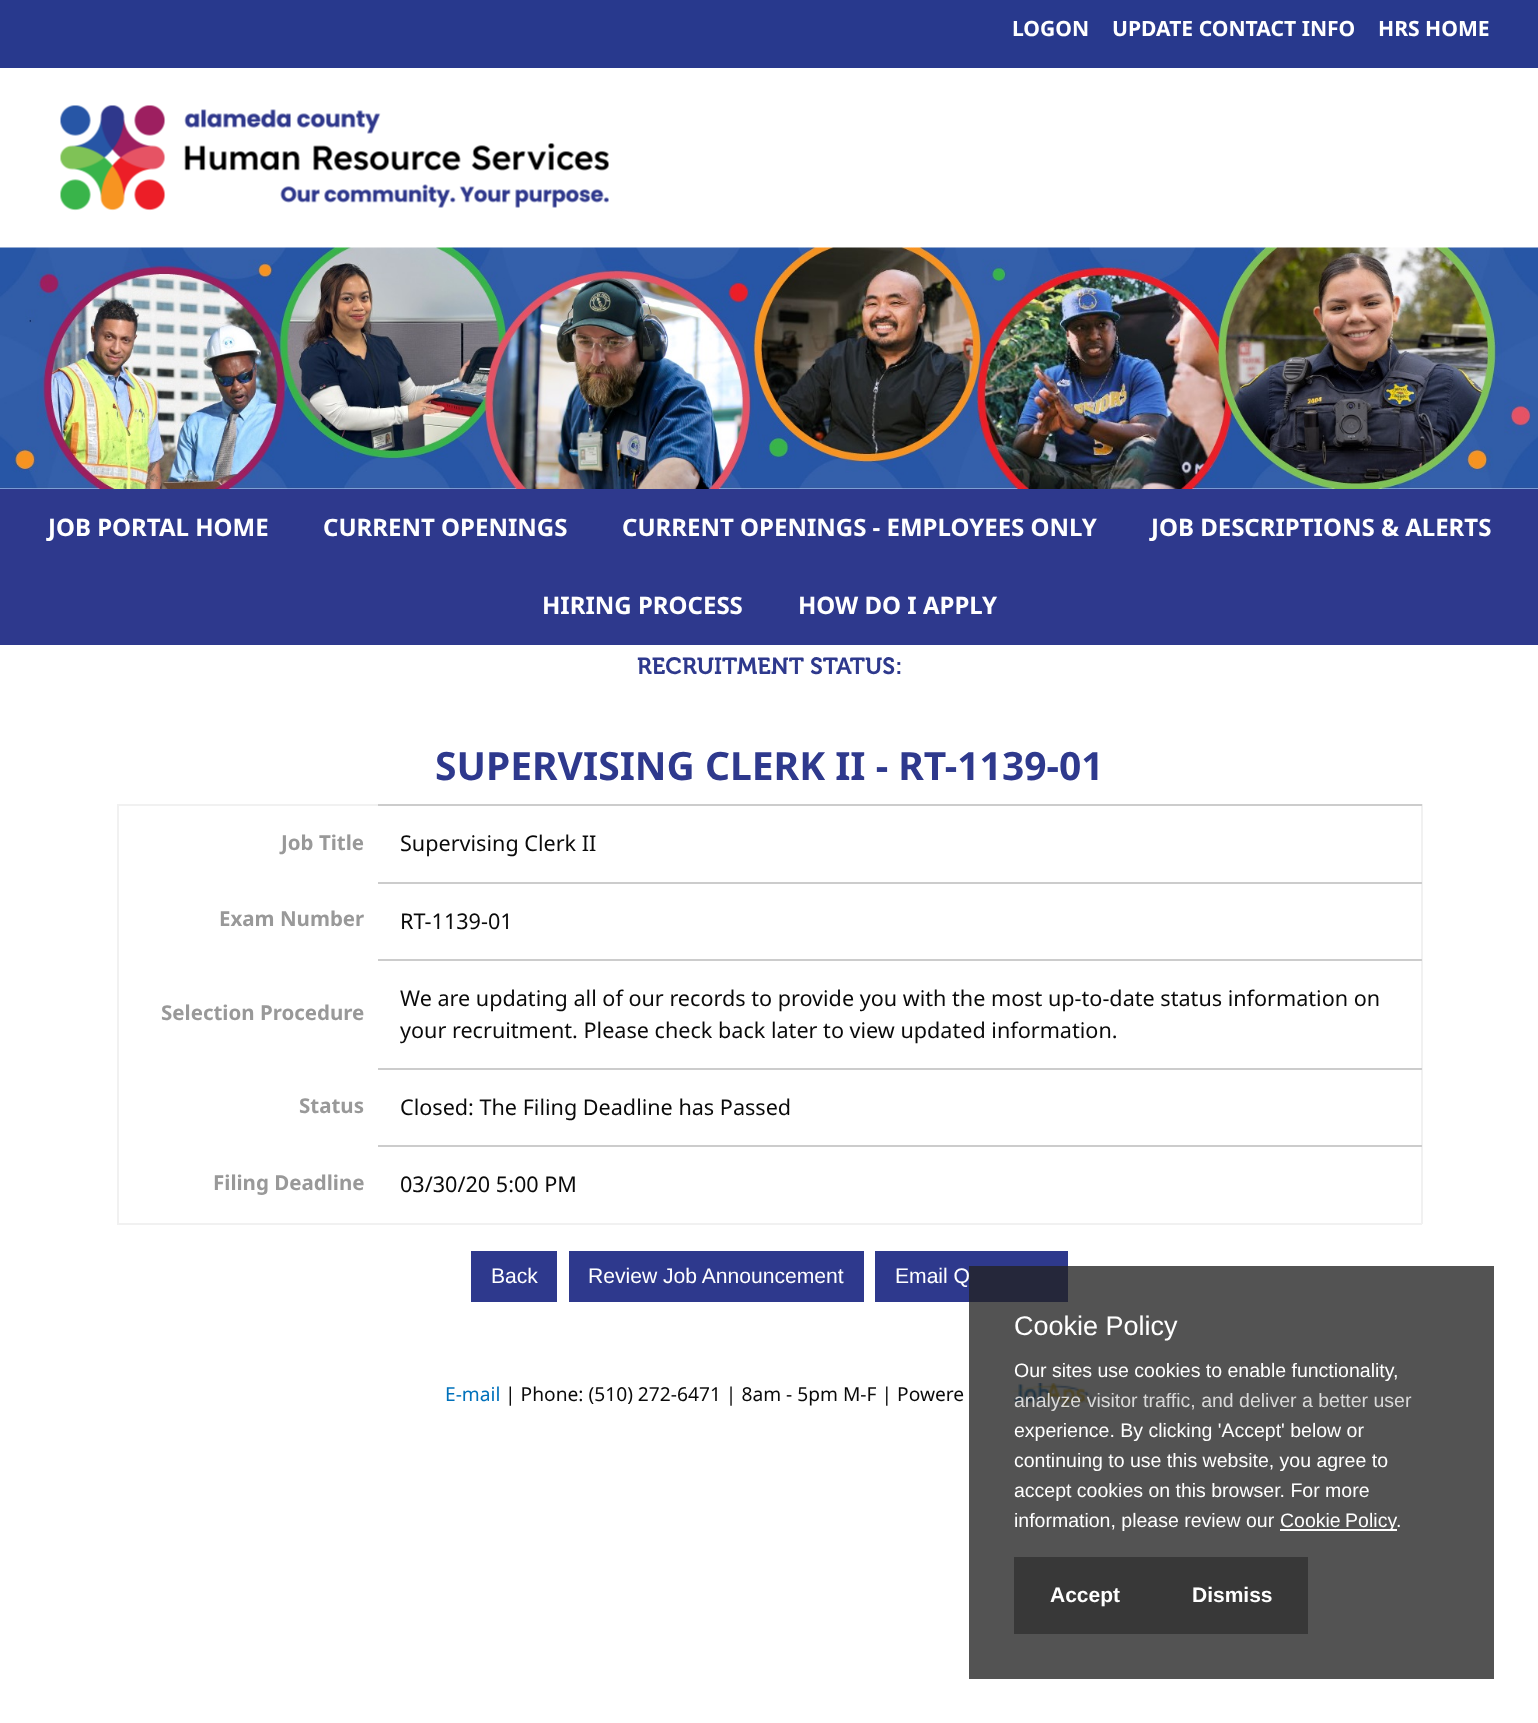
<?xml version="1.0" encoding="UTF-8"?>
<svg xmlns="http://www.w3.org/2000/svg" xmlns:xlink="http://www.w3.org/1999/xlink" width="1538" height="1723">
  <rect width="100%" height="100%" fill="#ffffff" />
  <rect width="1538" height="68" fill="#28398d" />
  <image x="60" y="105" width="549" height="106" xlink:href="image1.png" />
  <image x="0" y="247" width="1538" height="242" xlink:href="image2.png" />
  <rect y="489" width="1538" height="156" fill="#2e398d" />
  <rect x="117" y="804" width="261" height="2" fill="#f1f1f1" />
  <rect x="1421" y="804" width="2" height="420" fill="#f1f1f1" />
  <rect x="117" y="1223" width="1305" height="2" fill="#f1f1f1" />
  <rect x="117" y="804" width="2" height="420" fill="#f1f1f1" />
  <rect x="378" y="804" width="1044" height="2" fill="#cccccc" />
  <rect x="378" y="882" width="1044" height="2" fill="#cccccc" />
  <rect x="378" y="959" width="1044" height="2" fill="#cccccc" />
  <rect x="378" y="1068" width="1044" height="2" fill="#cccccc" />
  <rect x="378" y="1145" width="1044" height="2" fill="#cccccc" />
  <rect x="471" y="1251" width="86" height="51" fill="#2e398d" />
  <rect x="569" y="1251" width="295" height="51" fill="#2e398d" />
  <rect x="875" y="1251" width="193" height="51" fill="#2e398d" />
  <image x="1009" y="1383" width="85" height="26" xlink:href="image3.png" />
  <rect x="969" y="1266" width="525" height="413" fill="#232323" fill-opacity="0.78" />
  <rect x="1280" y="1529" width="117" height="2" fill="#ffffff" />
  <rect x="1014" y="1557" width="294" height="77" fill="#383838" />
  <text x="1012" y="36" style="font-family: Noto Sans; font-size: 21.1px; font-weight: bold; fill: #ffffff">LOGON</text>
  <text x="1112" y="36" style="font-family: Noto Sans; font-size: 21.1px; font-weight: bold; fill: #ffffff">UPDATE CONTACT INFO</text>
  <text x="1378" y="36" style="font-family: Noto Sans; font-size: 21.1px; font-weight: bold; fill: #ffffff">HRS HOME</text>
  <text x="48" y="536" style="font-family: Noto Sans; font-size: 24px; font-weight: bold; fill: #ffffff">JOB PORTAL HOME</text>
  <text x="323" y="536" style="font-family: Noto Sans; font-size: 24px; font-weight: bold; fill: #ffffff">CURRENT OPENINGS</text>
  <text x="622" y="536" style="font-family: Noto Sans; font-size: 24px; font-weight: bold; fill: #ffffff">CURRENT OPENINGS - EMPLOYEES ONLY</text>
  <text x="1151" y="536" style="font-family: Noto Sans; font-size: 24px; font-weight: bold; fill: #ffffff">JOB DESCRIPTIONS &amp; ALERTS</text>
  <text x="542" y="614" style="font-family: Noto Sans; font-size: 24px; font-weight: bold; fill: #ffffff">HIRING PROCESS</text>
  <text x="798" y="614" style="font-family: Noto Sans; font-size: 24px; font-weight: bold; fill: #ffffff">HOW DO I APPLY</text>
  <text x="637" y="674" style="font-family: 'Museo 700'; font-size: 23.4px; font-weight: 600; fill: #2e398d">RECRUITMENT STATUS:</text>
  <text x="435" y="780" style="font-family: Noto Sans; font-size: 39px; font-weight: bold; fill: #2e398d">SUPERVISING CLERK II - RT-1139-01</text>
  <text x="281" y="850" style="font-family: Noto Sans; font-size: 20.5px; font-weight: bold; fill: #999999">Job Title</text>
  <text x="400" y="851" style="font-family: Noto Sans; font-size: 21.6px; fill: #0a0a0a">Supervising Clerk II</text>
  <text x="219" y="926" style="font-family: Noto Sans; font-size: 20.5px; font-weight: bold; fill: #999999">Exam Number</text>
  <text x="400" y="929" style="font-family: Noto Sans; font-size: 21.6px; fill: #0a0a0a">RT-1139-01</text>
  <text x="161" y="1020" style="font-family: Noto Sans; font-size: 20.5px; font-weight: bold; fill: #999999">Selection Procedure</text>
  <text x="400" y="1006" style="font-family: Noto Sans; font-size: 21.6px; fill: #0a0a0a">We are updating all of our records to provide you with the most up-to-date status information on</text>
  <text x="400" y="1038" style="font-family: Noto Sans; font-size: 21.6px; fill: #0a0a0a">your recruitment. Please check back later to view updated information.</text>
  <text x="299" y="1113" style="font-family: Noto Sans; font-size: 20.5px; font-weight: bold; fill: #999999">Status</text>
  <text x="400" y="1115" style="font-family: Noto Sans; font-size: 21.6px; fill: #0a0a0a">Closed: The Filing Deadline has Passed</text>
  <text x="213" y="1190" style="font-family: Noto Sans; font-size: 20.5px; font-weight: bold; fill: #999999">Filing Deadline</text>
  <text x="400" y="1192" style="font-family: Noto Sans; font-size: 21.6px; fill: #0a0a0a">03/30/20 5:00 PM</text>
  <text x="491" y="1283" style="font-family: Liberation Sans; font-size: 21.1px; fill: #ffffff">Back</text>
  <text x="588" y="1283" style="font-family: Liberation Sans; font-size: 21.1px; fill: #ffffff">Review Job Announcement</text>
  <text x="895" y="1283" style="font-family: Liberation Sans; font-size: 21.1px; fill: #ffffff">Email Q</text>
  <text x="445" y="1401" style="font-family: Noto Sans; font-size: 19.2px; fill: #0071bb">E-mail</text>
  <text x="505" y="1401" style="font-family: Noto Sans; font-size: 19.2px; fill: #0a0a0a">| Phone: (510) 272-6471 | 8am - 5pm M-F | Powere</text>
  <text x="1014" y="1335" style="font-family: Liberation Sans; font-size: 27px; fill: #ffffff">Cookie Policy</text>
  <text x="1014" y="1377" style="font-family: Liberation Sans; font-size: 19.5px; fill: #ffffff">Our sites use cookies to enable functionality,</text>
  <text x="1014" y="1407" style="font-family: Liberation Sans; font-size: 19.5px; fill: #d9d9d9">analyze visitor traffic, and deliver a better user</text>
  <text x="1014" y="1437" style="font-family: Liberation Sans; font-size: 19.5px; fill: #ffffff">experience. By clicking 'Accept' below or</text>
  <text x="1014" y="1467" style="font-family: Liberation Sans; font-size: 19.5px; fill: #ffffff">continuing to use this website, you agree to</text>
  <text x="1014" y="1497" style="font-family: Liberation Sans; font-size: 19.5px; fill: #ffffff">accept cookies on this browser. For more</text>
  <text x="1014" y="1527" style="font-family: Liberation Sans; font-size: 19.5px; fill: #ffffff">information, please review our</text>
  <text x="1280" y="1527" word-spacing="-1" style="font-family: Liberation Sans; font-size: 19.5px; fill: #ffffff">Cookie Policy</text>
  <text x="1396" y="1527" style="font-family: Liberation Sans; font-size: 19.5px; fill: #ffffff">.</text>
  <text x="1050" y="1602" style="font-family: Liberation Sans; font-size: 21px; font-weight: bold; fill: #ffffff">Accept</text>
  <text x="1192" y="1602" style="font-family: Liberation Sans; font-size: 21px; font-weight: bold; fill: #ffffff">Dismiss</text>
</svg>
